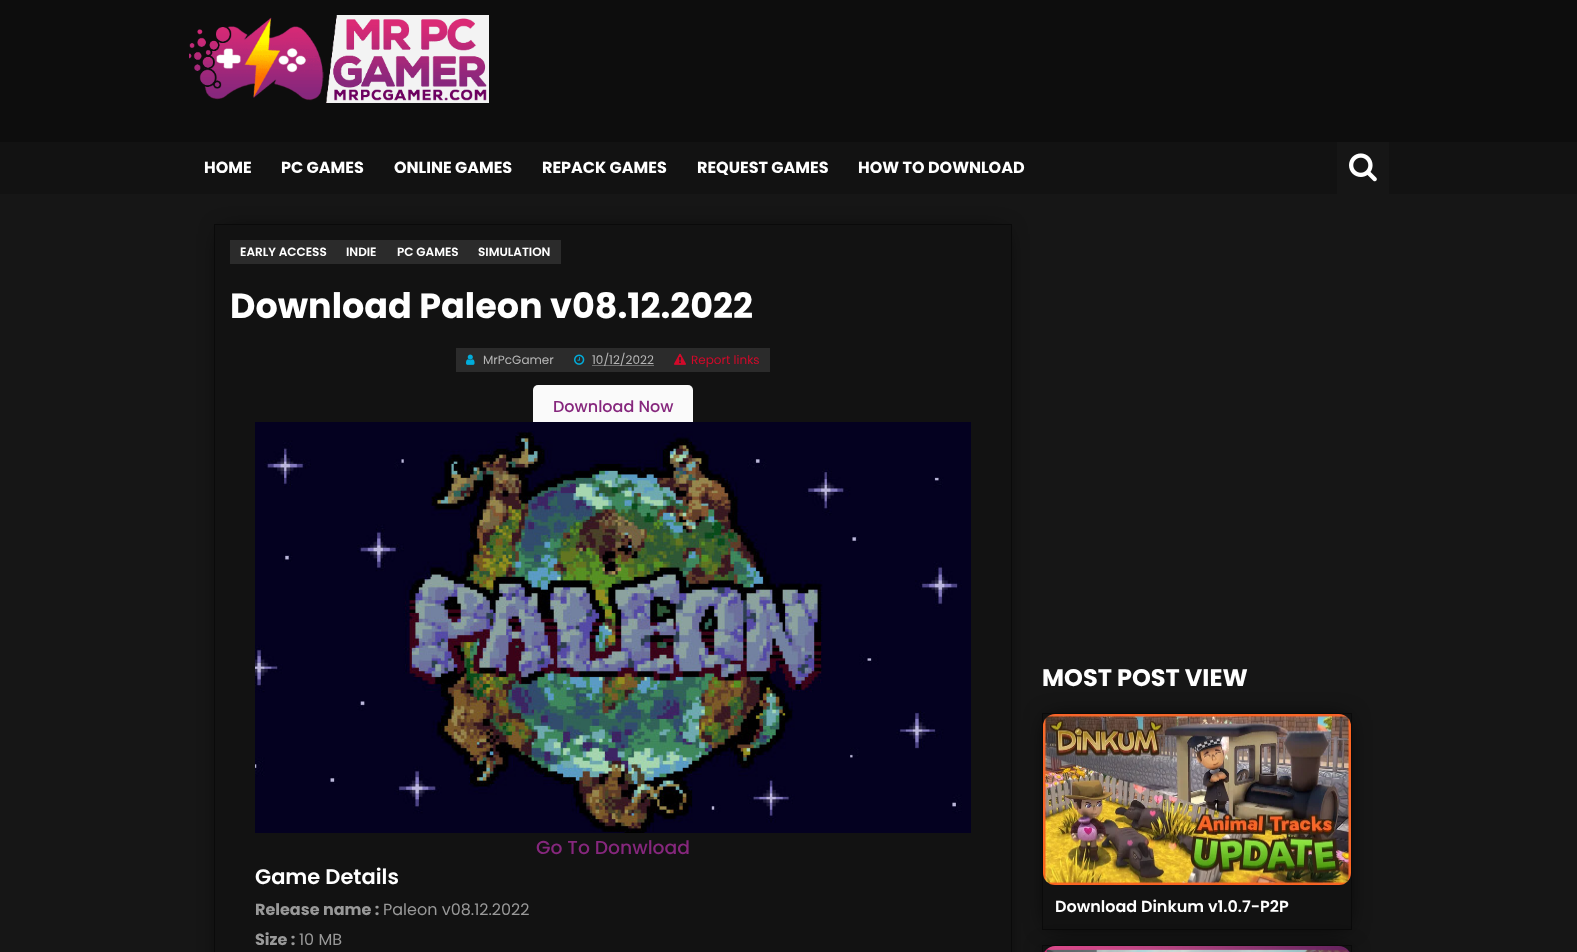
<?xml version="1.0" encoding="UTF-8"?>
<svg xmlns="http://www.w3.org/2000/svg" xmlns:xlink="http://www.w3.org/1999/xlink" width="1577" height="952">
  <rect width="100%" height="100%" fill="#161616" />
  <rect width="1577" height="142" fill="#0d0d0d" />
  <image x="189" y="15" width="300" height="88" xlink:href="image1.png" />
  <rect y="142" width="1577" height="52" fill="#121212" />
  <rect x="1337" y="142" width="52" height="52" fill="#161616" />
  <image x="1349" y="153" width="28" height="29" xlink:href="image2.png" />
  <rect x="224" y="234" width="778" height="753" fill="#000000" filter="blur(11.5px)" />
  <rect x="214.5" y="224.5" width="797" height="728" fill="#121212" stroke="#0a0a0a" />
  <rect x="230" y="240" width="331" height="24" fill="#2b2b2b" />
  <rect x="456" y="348" width="314" height="24" fill="#2b2b2b" />
  <image x="466" y="354" width="9" height="11" xlink:href="image3.png" />
  <image x="574" y="354" width="11" height="11" xlink:href="image4.png" />
  <path d="M 592.5 365.5 h 61.5" fill="none" stroke="#b6b6b6" stroke-dasharray="1 1" />
  <image x="674" y="353" width="12" height="12" xlink:href="image5.png" />
  <rect x="533" y="385" width="160" height="43" rx="5" fill="#fafafa" />
  <image x="255" y="422" width="716" height="411" xlink:href="image6.png" />
  <rect x="1049" y="720" width="296" height="203" fill="#000000" filter="blur(11.5px)" />
  <rect x="1042.5" y="713.5" width="309" height="216" fill="#121212" stroke="#0a0a0a" />
  <image x="1043" y="714" width="308" height="171" xlink:href="image7.png" />
  <rect x="1049" y="952" width="296" height="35" fill="#000000" filter="blur(11.5px)" />
  <rect x="1052" y="946" width="290" height="6" fill="#121212" />
  <rect x="1042.5" y="945.5" width="309" height="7" fill="none" stroke="#0a0a0a" />
  <image x="1044" y="946" width="306" height="6" xlink:href="image8.png" />
  <text x="204" y="173" style="font-family: Poppins; font-size: 16px; font-weight: bold; fill: #ffffff">HOME</text>
  <text x="281" y="173" style="font-family: Poppins; font-size: 16px; font-weight: bold; fill: #ffffff">PC GAMES</text>
  <text x="394" y="173" style="font-family: Poppins; font-size: 16px; font-weight: bold; fill: #ffffff">ONLINE GAMES</text>
  <text x="542" y="173" style="font-family: Poppins; font-size: 16px; font-weight: bold; fill: #ffffff">REPACK GAMES</text>
  <text x="697" y="173" style="font-family: Poppins; font-size: 16px; font-weight: bold; fill: #ffffff">REQUEST GAMES</text>
  <text x="858" y="173" style="font-family: Poppins; font-size: 16px; font-weight: bold; fill: #ffffff">HOW TO DOWNLOAD</text>
  <text x="240" y="256" style="font-family: Poppins; font-size: 12px; font-weight: 600; fill: #ffffff">EARLY ACCESS</text>
  <text x="346" y="256" style="font-family: Poppins; font-size: 12px; font-weight: 600; fill: #ffffff">INDIE</text>
  <text x="397" y="256" style="font-family: Poppins; font-size: 12px; font-weight: 600; fill: #ffffff">PC GAMES</text>
  <text x="478" y="256" style="font-family: Poppins; font-size: 12px; font-weight: 600; fill: #ffffff">SIMULATION</text>
  <text x="230" y="318" style="font-family: Poppins; font-size: 35px; font-weight: bold; fill: #ffffff">Download Paleon v08.12.2022</text>
  <text x="483" y="364" style="font-family: Poppins; font-size: 12px; fill: #b6b6b6">MrPcGamer</text>
  <text x="592" y="364" style="font-family: Poppins; font-size: 12px; fill: #b6b6b6">10/12/2022</text>
  <text x="691" y="364" style="font-family: Poppins; font-size: 12px; fill: #d2092a">Report links</text>
  <text x="553" y="412" style="font-family: Poppins; font-size: 16px; font-weight: 500; fill: #86277d">Download Now</text>
  <text x="536" y="854" style="font-family: Poppins; font-size: 18.75px; font-weight: 500; fill: #86277d">Go To Donwload</text>
  <text x="255" y="884" style="font-family: Poppins; font-size: 21px; font-weight: 600; fill: #ffffff">Game Details</text>
  <text x="255" y="915" style="font-family: Poppins; font-size: 16px; font-weight: bold; fill: #999999">Release name :</text>
  <text x="383" y="915" style="font-family: Poppins; font-size: 16px; fill: #999999">Paleon v08.12.2022</text>
  <text x="255" y="945" style="font-family: Poppins; font-size: 16px; font-weight: bold; fill: #999999">Size :</text>
  <text x="299" y="945" style="font-family: Poppins; font-size: 16px; fill: #999999">10 MB</text>
  <text x="1042" y="686" style="font-family: Poppins; font-size: 24px; font-weight: bold; fill: #ffffff">MOST POST VIEW</text>
  <text x="1055" y="912" style="font-family: Poppins; font-size: 16px; font-weight: 600; fill: #ffffff">Download Dinkum v1.0.7-P2P</text>
</svg>
